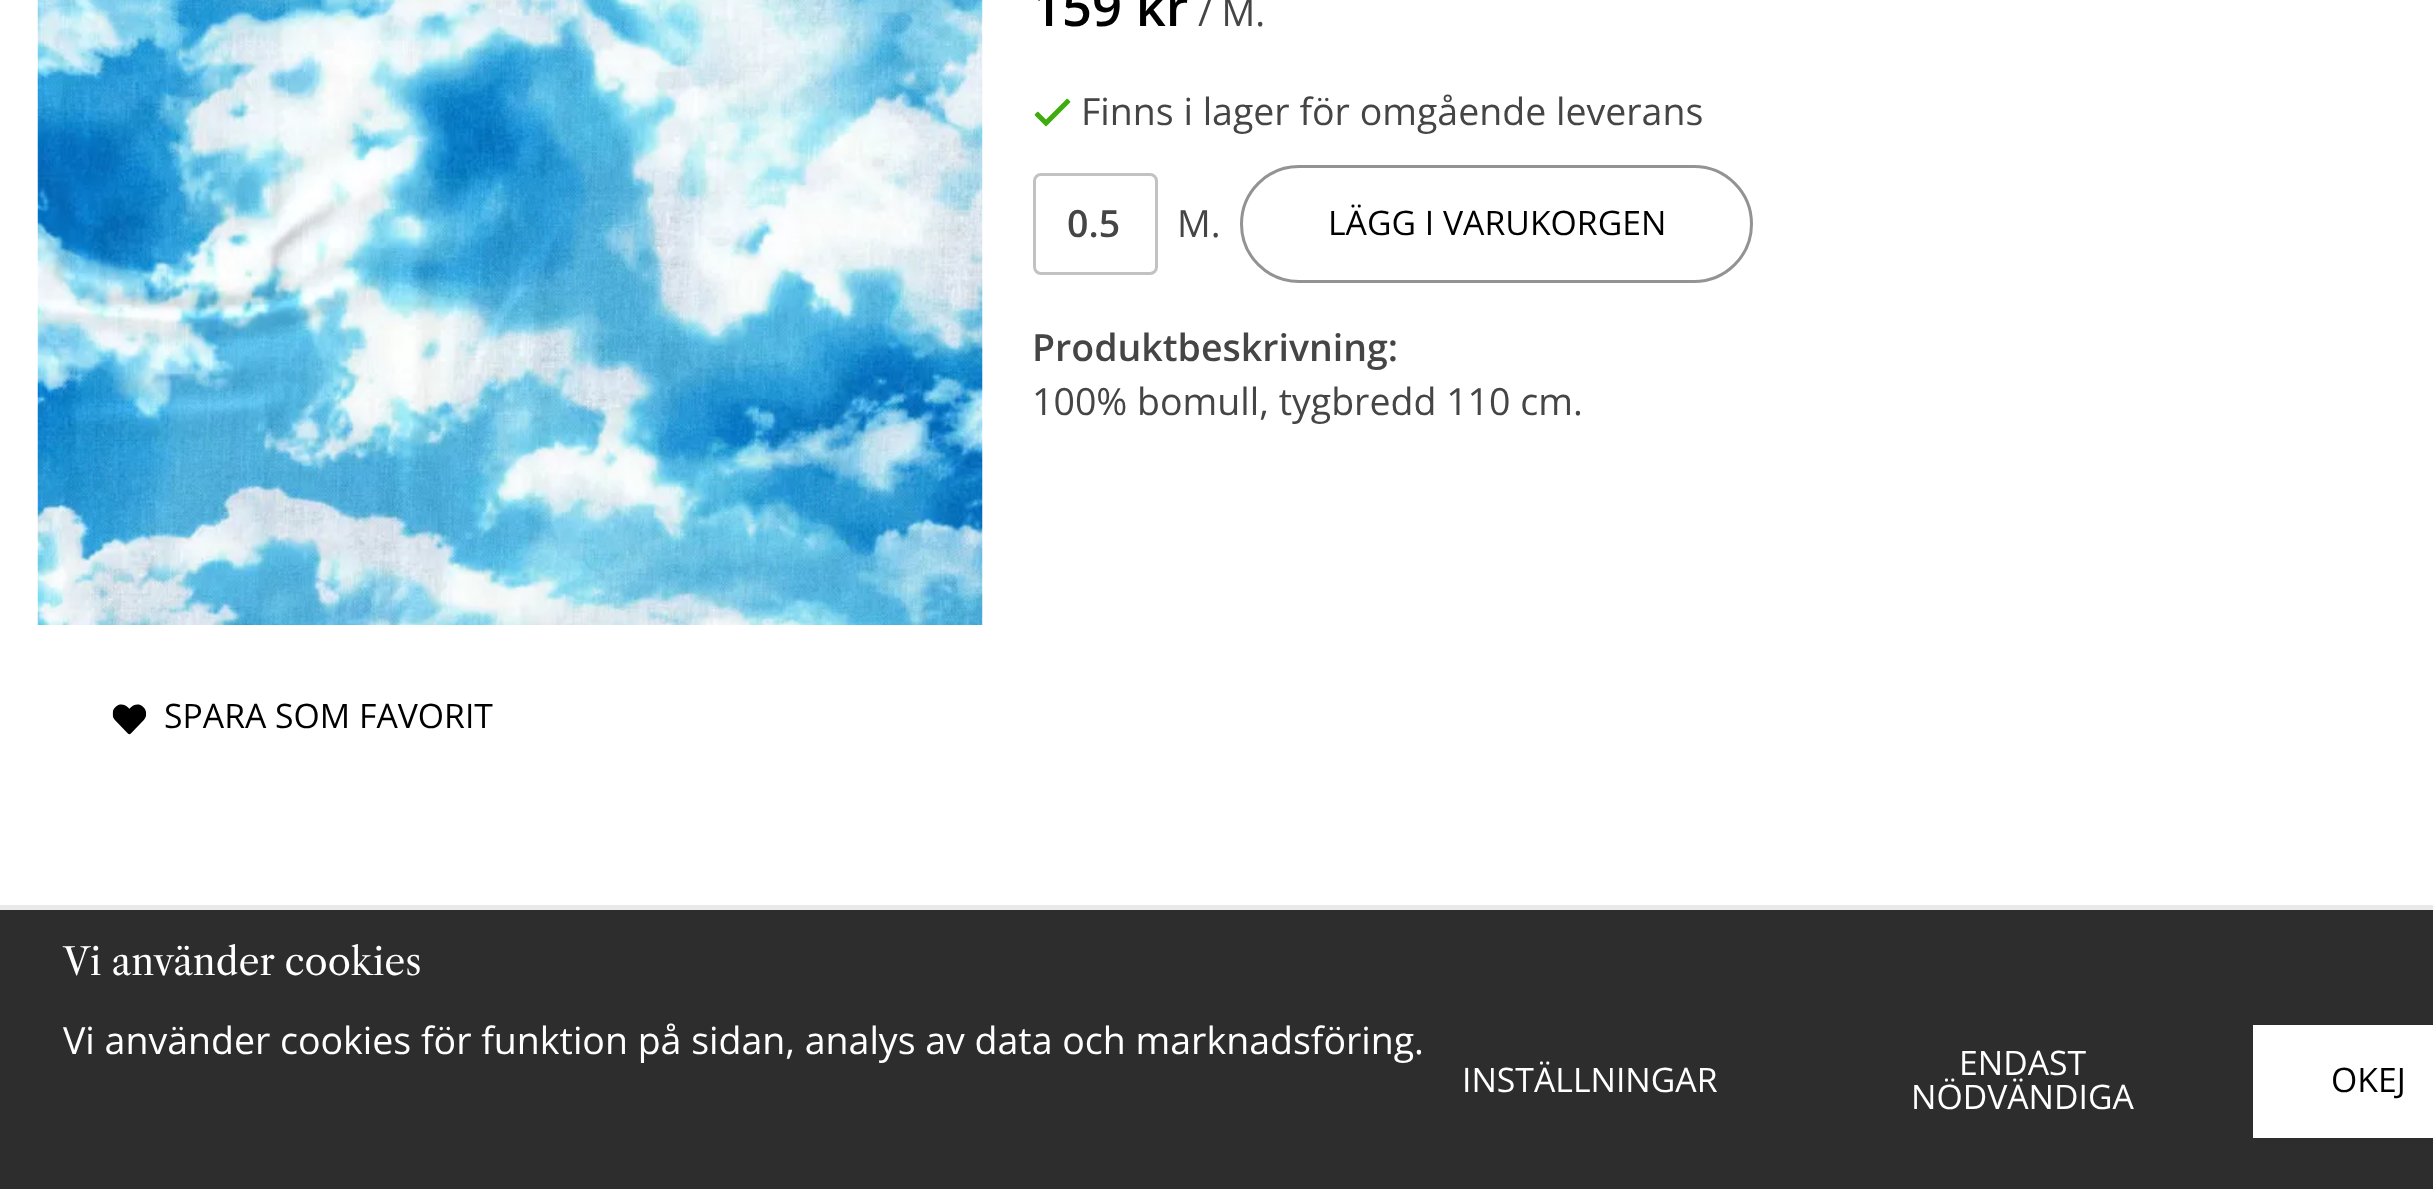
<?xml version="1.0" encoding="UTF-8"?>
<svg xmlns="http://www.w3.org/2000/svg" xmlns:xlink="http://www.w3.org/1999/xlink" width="2433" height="1189">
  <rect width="100%" height="100%" fill="#ffffff" />
  <image x="37" y="0" width="946" height="625" xlink:href="image1.png" />
  <image x="1034" y="98" width="37" height="29" xlink:href="image2.png" />
  <rect x="1034.5" y="174.5" width="122" height="99" rx="6.5" fill="none" stroke="#c2c2c2" stroke-width="3" />
  <rect x="1241.5" y="166.5" width="510" height="115" rx="57.5" fill="none" stroke="#939393" stroke-width="3" />
  <image x="112" y="704" width="35" height="31" xlink:href="image3.png" />
  <rect y="910" width="2433" height="279" fill="#2d2d2d" />
  <rect y="905" width="2433" height="5" fill="#e9e9e9" />
  <rect x="2253" y="1025" width="180" height="113" fill="#ffffff" />
  <text x="1032" y="26" style="font-family: Open Sans; font-size: 52.5px; font-weight: 600; fill: #000000">159 kr</text>
  <text x="1198" y="26" style="font-family: Open Sans; font-size: 37.5px; fill: #454545">/ M.</text>
  <text x="1081" y="125" style="font-family: Open Sans; font-size: 37.5px; fill: #454545">Finns i lager för omgående leverans</text>
  <text x="1067" y="237" style="font-family: Open Sans; font-size: 37.5px; font-weight: 600; fill: #454545">0.5</text>
  <text x="1177" y="237" style="font-family: Open Sans; font-size: 37.5px; fill: #454545">M.</text>
  <text x="1328" y="235" style="font-family: Open Sans; font-size: 33.75px; fill: #000000">LÄGG I VARUKORGEN</text>
  <text x="1032" y="361" style="font-family: Open Sans; font-size: 37.5px; font-weight: 600; fill: #454545">Produktbeskrivning:</text>
  <text x="1032" y="415" style="font-family: Open Sans; font-size: 37.5px; fill: #454545">100% bomull, tygbredd 110 cm.</text>
  <text x="164" y="728" style="font-family: Open Sans; font-size: 33.75px; fill: #000000">SPARA SOM FAVORIT</text>
  <text x="63" y="975" style="font-family: Libre Caslon Text; font-size: 37.5px; fill: #ffffff">Vi använder cookies</text>
  <text x="63" y="1054" style="font-family: Open Sans; font-size: 37.5px; fill: #ffffff">Vi använder cookies för funktion på sidan, analys av data och marknadsföring.</text>
  <text x="1462" y="1092" style="font-family: Open Sans; font-size: 33.75px; fill: #ffffff">INSTÄLLNINGAR</text>
  <text x="1959" y="1075" style="font-family: Open Sans; font-size: 33.75px; fill: #ffffff">ENDAST</text>
  <text x="1911" y="1109" style="font-family: Open Sans; font-size: 33.75px; fill: #ffffff">NÖDVÄNDIGA</text>
  <text x="2331" y="1092" style="font-family: Open Sans; font-size: 33.75px; fill: #000000">OKEJ</text>
</svg>
